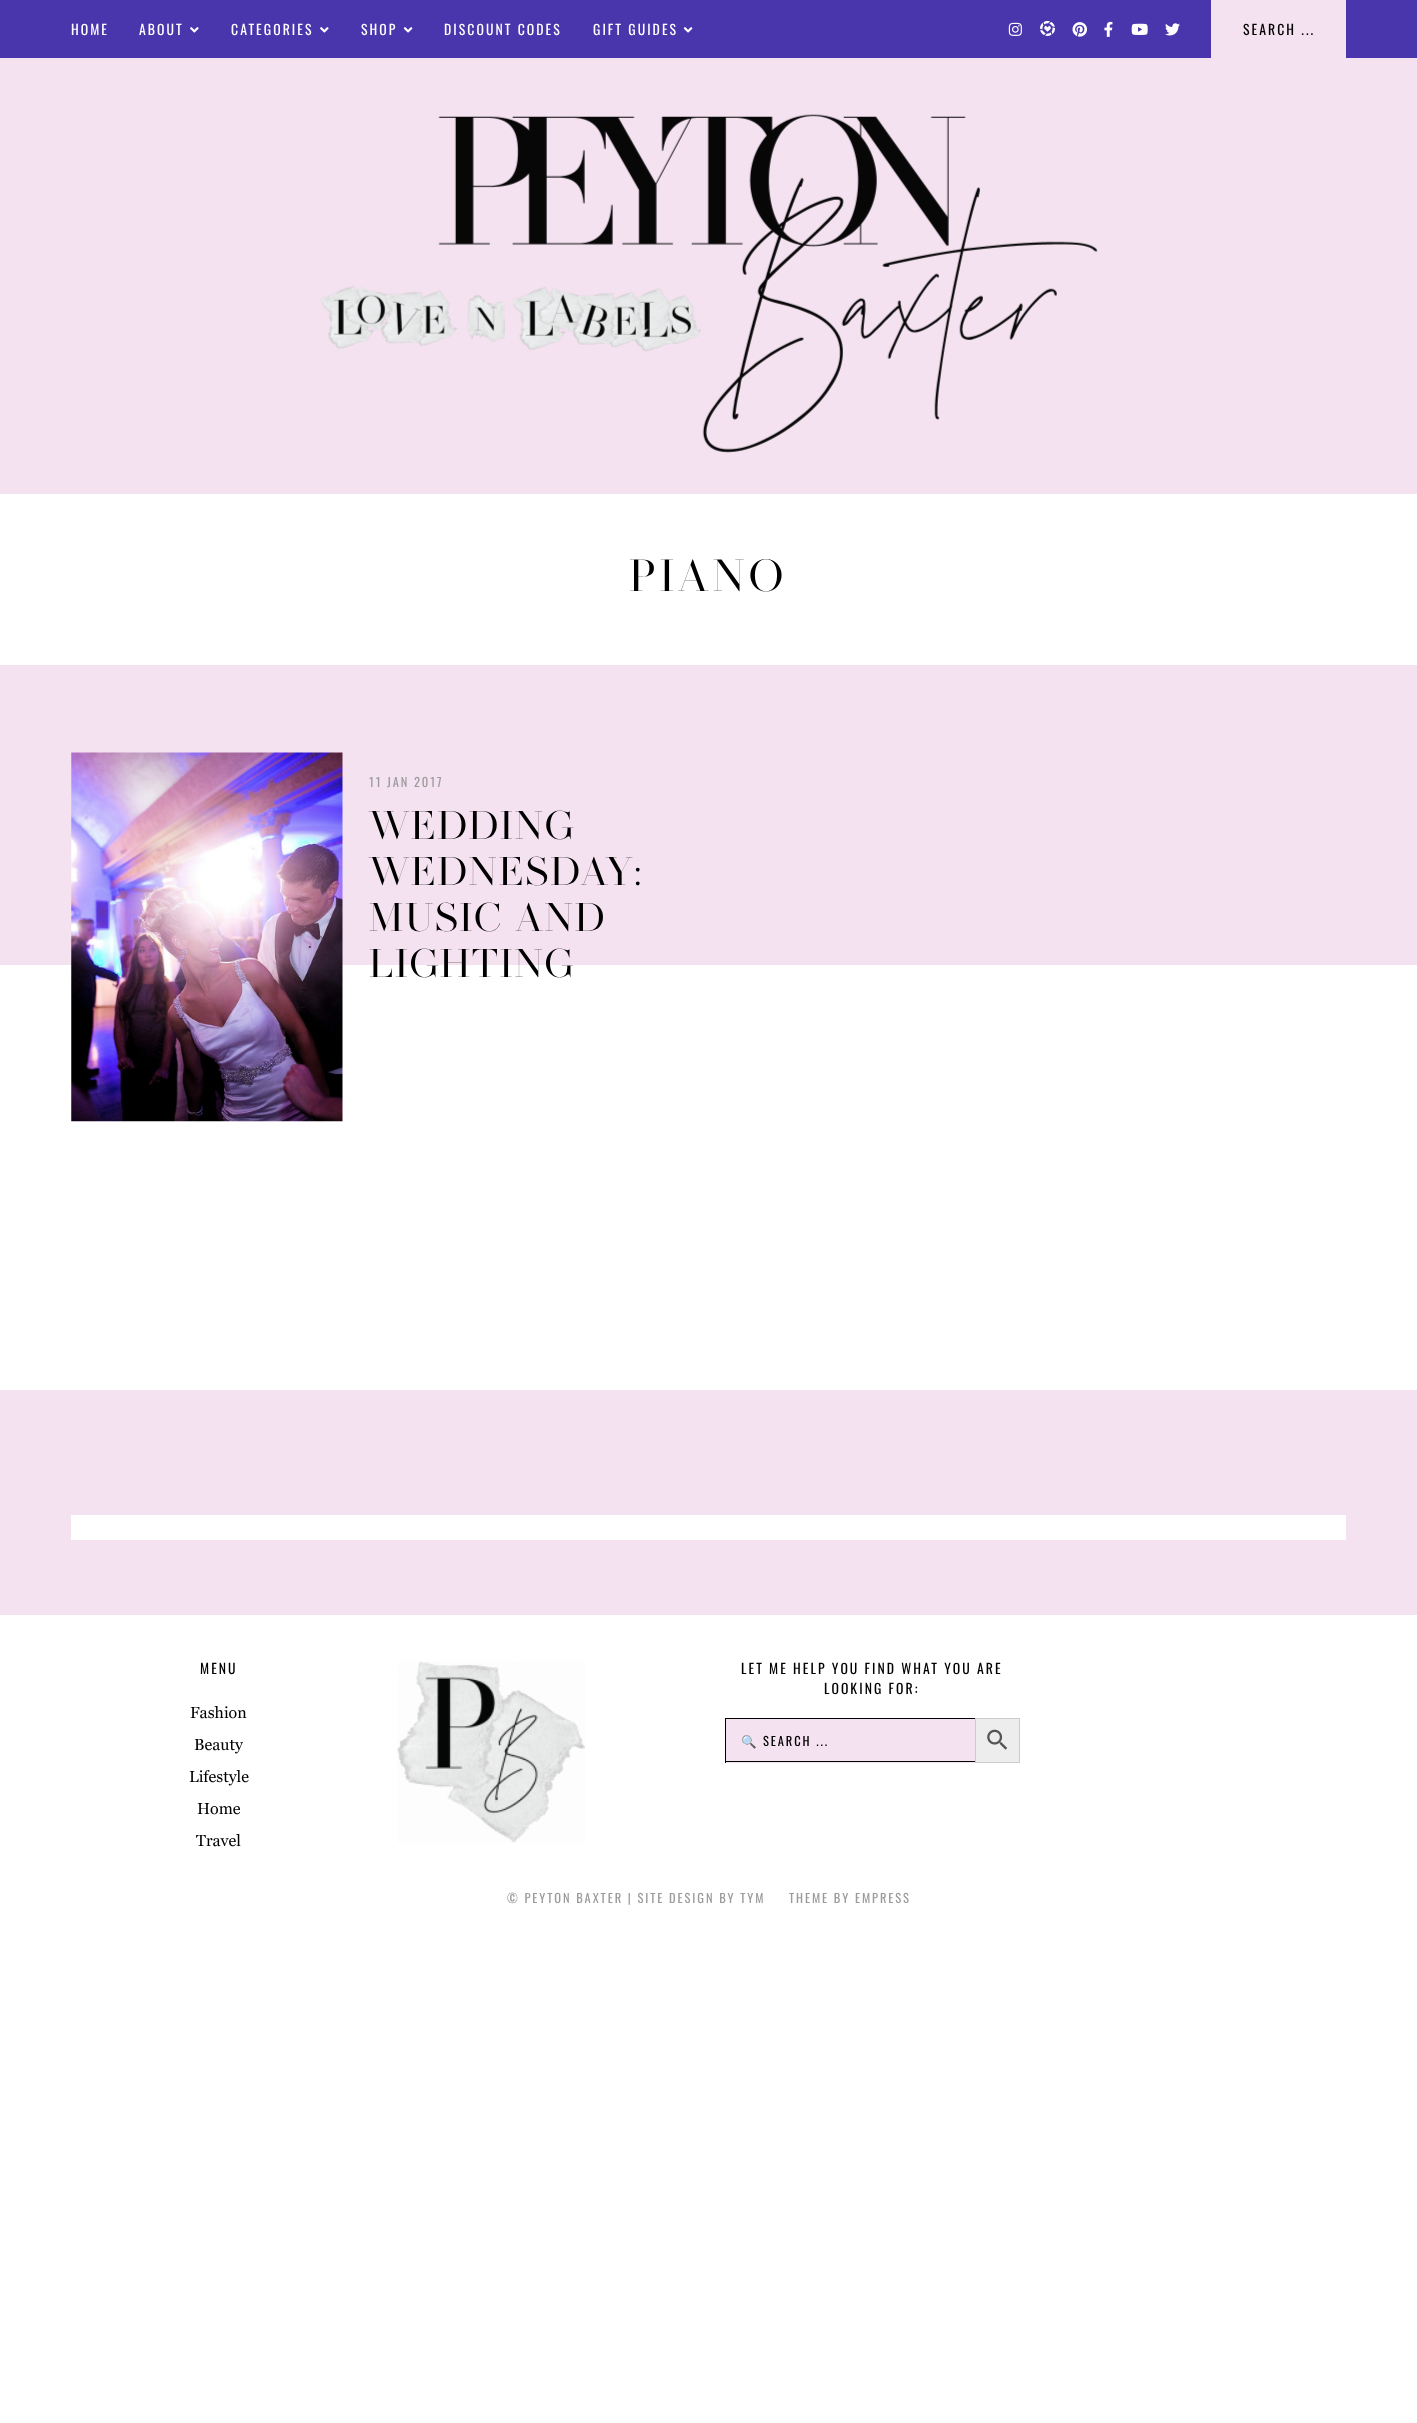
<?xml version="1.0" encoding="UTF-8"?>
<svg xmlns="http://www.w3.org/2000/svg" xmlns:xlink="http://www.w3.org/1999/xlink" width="1417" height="2423">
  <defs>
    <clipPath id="clip1"><rect x="741" y="1731" width="219" height="19" /></clipPath>
  </defs>
  <rect width="100%" height="100%" fill="#ffffff" />
  <rect width="1417" height="58" fill="#4935ac" />
  <image x="190" y="27" width="9" height="6" xlink:href="image1.png" />
  <image x="320" y="27" width="9" height="6" xlink:href="image1.png" />
  <image x="403" y="27" width="10" height="6" xlink:href="image2.png" />
  <image x="683" y="27" width="10" height="6" xlink:href="image2.png" />
  <image x="1008" y="22" width="14" height="14" xlink:href="image3.png" />
  <image x="1040" y="20" width="15" height="16" xlink:href="image4.png" />
  <image x="1072" y="22" width="15" height="15" xlink:href="image5.png" />
  <image x="1104" y="21" width="9" height="16" xlink:href="image6.png" />
  <image x="1131" y="23" width="17" height="12" xlink:href="image7.png" />
  <image x="1165" y="23" width="15" height="13" xlink:href="image8.png" />
  <rect x="1211" width="135" height="58" fill="#f5e2f0" />
  <rect y="58" width="1417" height="436" fill="#f5e2f0" />
  <image x="320" y="114" width="778" height="339" xlink:href="image9.png" />
  <rect y="665" width="1417" height="300" fill="#f5e2f0" />
  <image x="71" y="752" width="272" height="370" xlink:href="image10.png" />
  <rect y="1390" width="1417" height="225" fill="#f5e2f0" />
  <rect x="71" y="1515" width="1275" height="25" fill="#ffffff" />
  <image x="397" y="1661" width="188" height="182" xlink:href="image11.png" />
  <rect x="726" y="1719" width="249" height="44" fill="#f5e2f0" />
  <rect x="725" y="1718" width="250" height="1" fill="#000000" />
  <rect x="725" y="1761" width="250" height="1" fill="#000000" />
  <rect x="725" y="1718" width="1" height="45" fill="#000000" />
  <rect x="975.5" y="1718.5" width="44" height="44" fill="#ededed" stroke="#cccccc" />
  <image x="987" y="1729" width="21" height="21" xlink:href="image12.png" />
  <text x="71" y="35" style="font-family: Oswald; font-size: 13.75px; letter-spacing: 2.05px; fill: #ffffff">HOME</text>
  <text x="139" y="35" style="font-family: Oswald; font-size: 13.75px; letter-spacing: 2.05px; fill: #ffffff">ABOUT</text>
  <text x="231" y="35" style="font-family: Oswald; font-size: 13.75px; letter-spacing: 2.05px; fill: #ffffff">CATEGORIES</text>
  <text x="361" y="35" style="font-family: Oswald; font-size: 13.75px; letter-spacing: 2.05px; fill: #ffffff">SHOP</text>
  <text x="444" y="35" style="font-family: Oswald; font-size: 13.75px; letter-spacing: 2.05px; fill: #ffffff">DISCOUNT CODES</text>
  <text x="593" y="35" style="font-family: Oswald; font-size: 13.75px; letter-spacing: 2.05px; fill: #ffffff">GIFT GUIDES</text>
  <text x="1243" y="35" style="font-family: Oswald; font-size: 13.75px; letter-spacing: 2.05px; fill: #000000">SEARCH ...</text>
  <text x="629" y="591" style="font-family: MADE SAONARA; font-size: 45px; letter-spacing: 4.5px; fill: #000000">PIANO</text>
  <text x="369" y="787" style="font-family: Oswald; font-size: 12.5px; letter-spacing: 1.9px; fill: #9b9b9b">11 JAN 2017</text>
  <text x="369" y="839" style="font-family: MADE SAONARA; font-size: 40px; letter-spacing: 2px; fill: #000000">WEDDING</text>
  <text x="369" y="885" style="font-family: MADE SAONARA; font-size: 40px; letter-spacing: 2px; fill: #000000">WEDNESDAY:</text>
  <text x="369" y="931" style="font-family: MADE SAONARA; font-size: 40px; letter-spacing: 2px; fill: #000000">MUSIC AND</text>
  <text x="369" y="977" style="font-family: MADE SAONARA; font-size: 40px; letter-spacing: 2px; fill: #000000">LIGHTING</text>
  <text x="200" y="1674" style="font-family: Oswald; font-size: 13.75px; letter-spacing: 2.05px; fill: #000000">MENU</text>
  <text x="190" y="1718" style="font-family: Georgia; font-size: 16px; fill: #000000">Fashion</text>
  <text x="194" y="1750" style="font-family: Georgia; font-size: 16px; fill: #000000">Beauty</text>
  <text x="189" y="1782" style="font-family: Georgia; font-size: 16px; fill: #000000">Lifestyle</text>
  <text x="197" y="1814" style="font-family: Georgia; font-size: 16px; fill: #000000">Home</text>
  <text x="196" y="1846" style="font-family: Georgia; font-size: 16px; fill: #000000">Travel</text>
  <text x="741" y="1674" style="font-family: Oswald; font-size: 13.75px; letter-spacing: 2.05px; fill: #000000">LET ME HELP YOU FIND WHAT YOU ARE</text>
  <text x="824" y="1694" style="font-family: Oswald; font-size: 13.75px; letter-spacing: 2.05px; fill: #000000">LOOKING FOR:</text>
  <g clip-path="url(#clip1)">
    <text x="741" y="1746" style="font-family: Noto Color Emoji; font-size: 12.5px; letter-spacing: 1.9px; fill: #000000">🔍</text>
  </g>
  <text x="763" y="1746" style="font-family: Oswald; font-size: 12.5px; letter-spacing: 1.9px; fill: #000000">SEARCH ...</text>
  <text x="507" y="1903" style="font-family: Oswald; font-size: 12.5px; letter-spacing: 1.9px; fill: #9b9b9b">© PEYTON BAXTER | SITE DESIGN BY TYM</text>
  <text x="789" y="1903" style="font-family: Oswald; font-size: 12.5px; letter-spacing: 1.9px; fill: #9b9b9b">THEME BY EMPRESS</text>
</svg>
